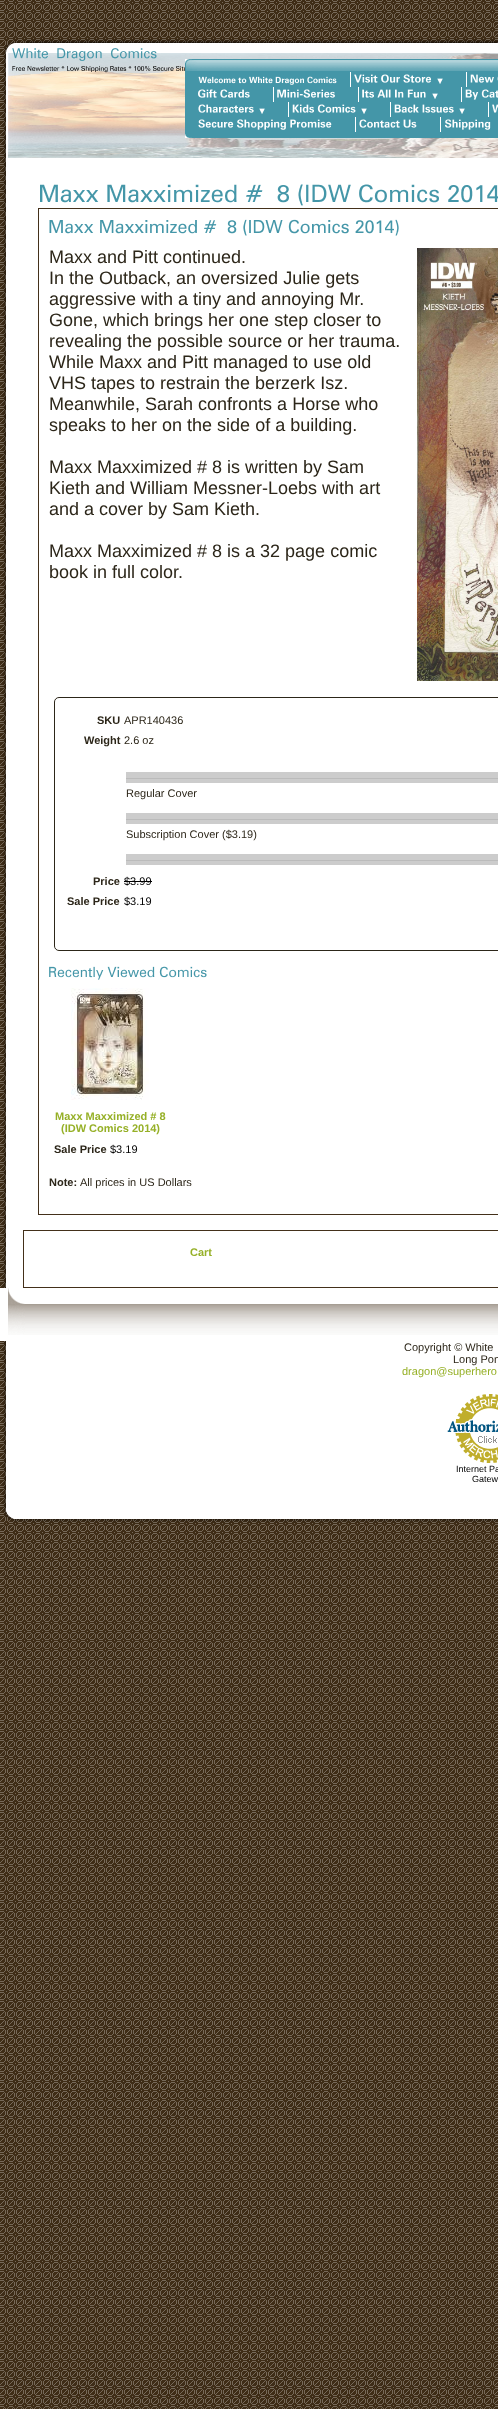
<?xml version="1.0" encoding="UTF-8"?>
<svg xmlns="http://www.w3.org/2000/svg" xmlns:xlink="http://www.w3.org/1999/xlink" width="498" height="2409">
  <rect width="100%" height="100%" fill="#ffffff" />
  <image x="0" y="0" width="498" height="2409" xlink:href="image1.png" />
  <image x="3" y="39" width="23" height="14" xlink:href="image2.png" />
  <image x="26" y="39" width="472" height="14" xlink:href="image3.png" />
  <image x="2" y="53" width="6" height="1446" xlink:href="image4.png" />
  <rect x="8" y="53" width="490" height="1235" fill="#ffffff" />
  <image x="8" y="53" width="490" height="105" xlink:href="image6.png" />
  <image x="12" y="48" width="173" height="25" xlink:href="image5.png" />
  <image x="185" y="59" width="12" height="12" xlink:href="image7.png" />
  <image x="197" y="59" width="301" height="12" xlink:href="image8.png" />
  <rect x="185" y="71" width="313" height="62" fill="#4496a8" />
  <image x="198" y="76" width="139" height="9" xlink:href="image9.png" />
  <rect x="350" y="72" width="1" height="15" fill="#ffffff" />
  <image x="354" y="74" width="89" height="10" xlink:href="image10.png" />
  <rect x="466" y="72" width="1" height="15" fill="#ffffff" />
  <image x="470" y="74" width="28" height="9" xlink:href="image11.png" />
  <image x="198" y="89" width="52" height="9" xlink:href="image12.png" />
  <rect x="273" y="87" width="1" height="15" fill="#ffffff" />
  <image x="277" y="89" width="58" height="9" xlink:href="image13.png" />
  <rect x="358" y="87" width="1" height="15" fill="#ffffff" />
  <image x="362" y="89" width="76" height="10" xlink:href="image14.png" />
  <rect x="461" y="87" width="1" height="15" fill="#ffffff" />
  <image x="465" y="89" width="33" height="11" xlink:href="image15.png" />
  <image x="198" y="104" width="67" height="10" xlink:href="image16.png" />
  <rect x="288" y="102" width="1" height="15" fill="#ffffff" />
  <image x="292" y="104" width="75" height="10" xlink:href="image17.png" />
  <rect x="390" y="102" width="1" height="15" fill="#ffffff" />
  <image x="394" y="104" width="71" height="10" xlink:href="image18.png" />
  <rect x="488" y="102" width="1" height="15" fill="#ffffff" />
  <image x="492" y="104" width="6" height="9" xlink:href="image19.png" />
  <image x="198" y="119" width="134" height="11" xlink:href="image20.png" />
  <rect x="355" y="117" width="1" height="15" fill="#ffffff" />
  <image x="359" y="119" width="58" height="9" xlink:href="image21.png" />
  <rect x="440" y="117" width="1" height="15" fill="#ffffff" />
  <image x="445" y="119" width="46" height="11" xlink:href="image22.png" />
  <image x="185" y="133" width="12" height="5" xlink:href="image23.png" />
  <rect x="197" y="133" width="301" height="5" fill="#4496a8" />
  <image x="40" y="184" width="458" height="22" xlink:href="image24.png" />
  <rect x="38.5" y="208.5" width="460" height="1006" fill="none" stroke="#43301a" />
  <image x="49" y="219" width="350" height="17" xlink:href="image25.png" />
  <image x="417" y="248" width="81" height="433" xlink:href="image26.png" />
  <rect x="54.5" y="697.5" width="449" height="253" rx="4.5" fill="none" stroke="#2c2619" />
  <rect x="126" y="772" width="372" height="11" fill="#cccccc" />
  <rect x="126" y="778" width="372" height="1" fill="#bbbbbb" />
  <rect x="126" y="813" width="372" height="11" fill="#cccccc" />
  <rect x="126" y="819" width="372" height="1" fill="#bbbbbb" />
  <rect x="126" y="854" width="372" height="11" fill="#cccccc" />
  <rect x="126" y="860" width="372" height="1" fill="#bbbbbb" />
  <rect x="124" y="881" width="28" height="1" fill="#000000" />
  <image x="49" y="966" width="158" height="14" xlink:href="image27.png" />
  <image x="71" y="988" width="78" height="112" xlink:href="image28.png" />
  <rect x="23.5" y="1230.5" width="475" height="57" fill="none" stroke="#43301a" />
  <rect y="1288" width="498" height="53" fill="#ffffff" />
  <image x="8" y="1288" width="17" height="47" xlink:href="image29.png" />
  <image x="25" y="1304" width="473" height="31" xlink:href="image30.png" />
  <rect x="8" y="1341" width="490" height="158" fill="#ffffff" />
  <image x="447" y="1394" width="51" height="69" xlink:href="image31.png" />
  <image x="2" y="1499" width="24" height="24" xlink:href="image32.png" />
  <image x="26" y="1499" width="472" height="24" xlink:href="image33.png" />
  <text x="49" y="263" style="font-family: Liberation Sans; font-size: 18px; fill: #2c2619">Maxx and Pitt continued.</text>
  <text x="49" y="284" style="font-family: Liberation Sans; font-size: 18px; fill: #2c2619">In the Outback, an oversized Julie gets</text>
  <text x="49" y="305" style="font-family: Liberation Sans; font-size: 18px; fill: #2c2619">aggressive with a tiny and annoying Mr.</text>
  <text x="49" y="326" style="font-family: Liberation Sans; font-size: 18px; fill: #2c2619">Gone, which brings her one step closer to</text>
  <text x="49" y="347" style="font-family: Liberation Sans; font-size: 18px; fill: #2c2619">revealing the possible source or her trauma.</text>
  <text x="49" y="368" style="font-family: Liberation Sans; font-size: 18px; fill: #2c2619">While Maxx and Pitt managed to use old</text>
  <text x="49" y="389" style="font-family: Liberation Sans; font-size: 18px; fill: #2c2619">VHS tapes to restrain the berzerk Isz.</text>
  <text x="49" y="410" style="font-family: Liberation Sans; font-size: 18px; fill: #2c2619">Meanwhile, Sarah confronts a Horse who</text>
  <text x="49" y="431" style="font-family: Liberation Sans; font-size: 18px; fill: #2c2619">speaks to her on the side of a building.</text>
  <text x="49" y="473" style="font-family: Liberation Sans; font-size: 18px; fill: #2c2619">Maxx Maxximized # 8 is written by Sam</text>
  <text x="49" y="494" style="font-family: Liberation Sans; font-size: 18px; fill: #2c2619">Kieth and William Messner-Loebs with art</text>
  <text x="49" y="515" style="font-family: Liberation Sans; font-size: 18px; fill: #2c2619">and a cover by Sam Kieth.</text>
  <text x="49" y="557" style="font-family: Liberation Sans; font-size: 18px; fill: #2c2619">Maxx Maxximized # 8 is a 32 page comic</text>
  <text x="49" y="578" style="font-family: Liberation Sans; font-size: 18px; fill: #2c2619">book in full color.</text>
  <text x="97" y="724" style="font-family: Liberation Sans; font-size: 11px; font-weight: bold; fill: #2c2619">SKU</text>
  <text x="124" y="724" style="font-family: Liberation Sans; font-size: 11px; fill: #2c2619">APR140436</text>
  <text x="84" y="744" style="font-family: Liberation Sans; font-size: 11px; font-weight: bold; fill: #2c2619">Weight</text>
  <text x="124" y="744" style="font-family: Liberation Sans; font-size: 11px; fill: #2c2619">2.6 oz</text>
  <text x="126" y="797" style="font-family: Liberation Sans; font-size: 11px; fill: #2c2619">Regular Cover</text>
  <text x="126" y="838" style="font-family: Liberation Sans; font-size: 11px; fill: #2c2619">Subscription Cover ($3.19)</text>
  <text x="93" y="885" style="font-family: Liberation Sans; font-size: 11px; font-weight: bold; fill: #2c2619">Price</text>
  <text x="124" y="885" style="font-family: Liberation Sans; font-size: 11px; fill: #000000">$3.99</text>
  <text x="67" y="905" style="font-family: Liberation Sans; font-size: 11px; font-weight: bold; fill: #2c2619">Sale Price</text>
  <text x="124" y="905" style="font-family: Liberation Sans; font-size: 11px; fill: #000000">$3.19</text>
  <text x="55" y="1120" style="font-family: Liberation Sans; font-size: 11px; font-weight: bold; fill: #96b027">Maxx Maxximized # 8</text>
  <text x="61" y="1132" style="font-family: Liberation Sans; font-size: 11px; font-weight: bold; fill: #96b027">(IDW Comics 2014)</text>
  <text x="54" y="1153" style="font-family: Liberation Sans; font-size: 11px; font-weight: bold; fill: #2c2619">Sale Price</text>
  <text x="110" y="1153" style="font-family: Liberation Sans; font-size: 11px; fill: #000000">$3.19</text>
  <text x="49" y="1186" style="font-family: Liberation Sans; font-size: 11px; font-weight: bold; fill: #2c2619">Note:</text>
  <text x="80" y="1186" style="font-family: Liberation Sans; font-size: 11px; fill: #2c2619">All prices in US Dollars</text>
  <text x="190" y="1256" style="font-family: Liberation Sans; font-size: 11px; font-weight: bold; fill: #96b027">Cart</text>
  <text x="404" y="1351" style="font-family: Liberation Sans; font-size: 11px; fill: #2c2619">Copyright © White</text>
  <text x="453" y="1363" style="font-family: Liberation Sans; font-size: 11px; fill: #2c2619">Long Pon</text>
  <text x="402" y="1375" style="font-family: Liberation Sans; font-size: 11px; fill: #96b027">dragon@superhero</text>
  <text x="456" y="1472" style="font-family: Liberation Sans; font-size: 9px; fill: #000000">Internet Pa</text>
  <text x="472" y="1482" style="font-family: Liberation Sans; font-size: 9px; fill: #000000">Gatew</text>
</svg>
